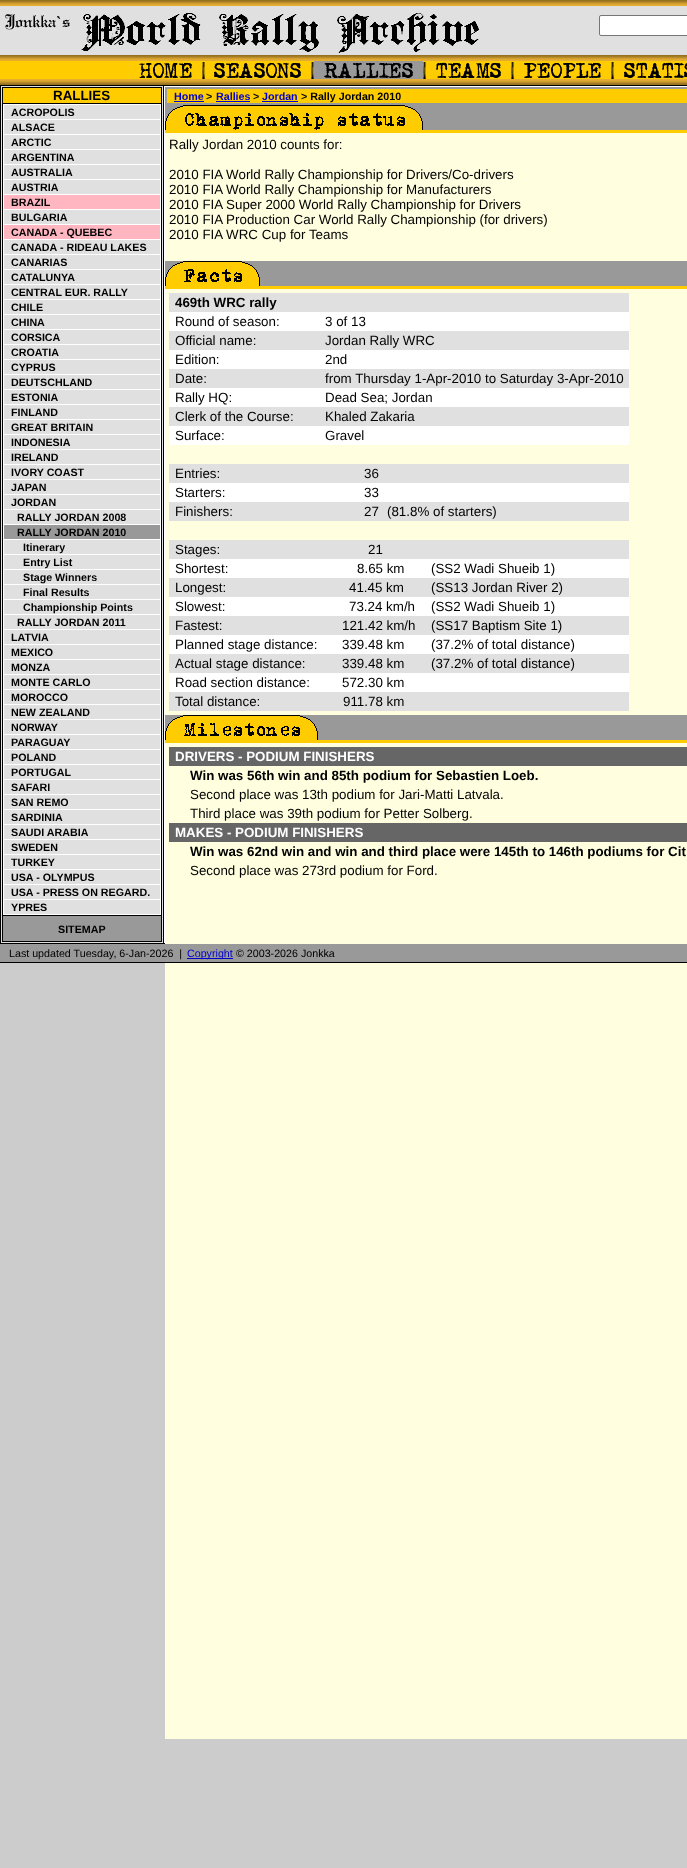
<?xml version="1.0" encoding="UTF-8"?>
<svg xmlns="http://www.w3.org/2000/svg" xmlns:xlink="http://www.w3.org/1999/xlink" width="687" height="1868">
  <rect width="100%" height="100%" fill="#cccccc" />
  <image x="0" y="0" width="687" height="6" xlink:href="image1.png" />
  <rect y="6" width="687" height="49" fill="#e0e0e0" />
  <image x="5" y="14" width="65" height="16" xlink:href="image2.png" />
  <image x="81" y="13" width="398" height="40" xlink:href="image3.png" />
  <rect x="599.5" y="15.5" width="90" height="20" rx="1.5" fill="#ffffff" stroke="#767676" />
  <image x="0" y="55" width="687" height="6" xlink:href="image1.png" />
  <rect y="61" width="687" height="18" fill="#ffcc00" />
  <image x="139" y="63" width="53" height="15" xlink:href="image4.png" />
  <image x="202" y="62" width="3" height="17" xlink:href="image5.png" />
  <image x="214" y="63" width="88" height="15" xlink:href="image6.png" />
  <image x="311" y="62" width="3" height="17" xlink:href="image5.png" />
  <rect x="314" y="61" width="109" height="18" fill="#999999" />
  <image x="423" y="62" width="3" height="17" xlink:href="image5.png" />
  <image x="436" y="62" width="66" height="16" xlink:href="image7.png" />
  <image x="511" y="62" width="3" height="17" xlink:href="image5.png" />
  <image x="611" y="62" width="3" height="17" xlink:href="image5.png" />
  <image x="624" y="62" width="63" height="16" xlink:href="image8.png" />
  <image x="324" y="63" width="90" height="15" xlink:href="image9.png" />
  <image x="524" y="63" width="77" height="15" xlink:href="image10.png" />
  <image x="0" y="79" width="687" height="6" xlink:href="image11.png" />
  <rect y="85" width="687" height="859" fill="#000000" />
  <rect x="1" y="86" width="162" height="857" fill="#e0e0e0" />
  <rect x="2" y="87" width="160" height="855" fill="#000000" />
  <rect x="3" y="88" width="158" height="15" fill="#ffcc00" />
  <rect x="3" y="104" width="158" height="811" fill="#ffffff" />
  <rect x="4" y="105" width="156" height="14" fill="#e0e0e0" />
  <rect x="4" y="120" width="156" height="14" fill="#e0e0e0" />
  <rect x="4" y="135" width="156" height="14" fill="#e0e0e0" />
  <rect x="4" y="150" width="156" height="14" fill="#e0e0e0" />
  <rect x="4" y="165" width="156" height="14" fill="#e0e0e0" />
  <rect x="4" y="180" width="156" height="14" fill="#e0e0e0" />
  <rect x="4" y="195" width="156" height="14" fill="#ffb6c1" />
  <rect x="4" y="210" width="156" height="14" fill="#e0e0e0" />
  <rect x="4" y="225" width="156" height="14" fill="#ffb6c1" />
  <rect x="4" y="240" width="156" height="14" fill="#e0e0e0" />
  <rect x="4" y="255" width="156" height="14" fill="#e0e0e0" />
  <rect x="4" y="270" width="156" height="14" fill="#e0e0e0" />
  <rect x="4" y="285" width="156" height="14" fill="#e0e0e0" />
  <rect x="4" y="300" width="156" height="14" fill="#e0e0e0" />
  <rect x="4" y="315" width="156" height="14" fill="#e0e0e0" />
  <rect x="4" y="330" width="156" height="14" fill="#e0e0e0" />
  <rect x="4" y="345" width="156" height="14" fill="#e0e0e0" />
  <rect x="4" y="360" width="156" height="14" fill="#e0e0e0" />
  <rect x="4" y="375" width="156" height="14" fill="#e0e0e0" />
  <rect x="4" y="390" width="156" height="14" fill="#e0e0e0" />
  <rect x="4" y="405" width="156" height="14" fill="#e0e0e0" />
  <rect x="4" y="420" width="156" height="14" fill="#e0e0e0" />
  <rect x="4" y="435" width="156" height="14" fill="#e0e0e0" />
  <rect x="4" y="450" width="156" height="14" fill="#e0e0e0" />
  <rect x="4" y="465" width="156" height="14" fill="#e0e0e0" />
  <rect x="4" y="480" width="156" height="14" fill="#e0e0e0" />
  <rect x="4" y="495" width="156" height="14" fill="#e0e0e0" />
  <rect x="4" y="510" width="156" height="14" fill="#e0e0e0" />
  <rect x="4" y="525" width="156" height="14" fill="#999999" />
  <rect x="4" y="540" width="156" height="14" fill="#e0e0e0" />
  <rect x="4" y="555" width="156" height="14" fill="#e0e0e0" />
  <rect x="4" y="570" width="156" height="14" fill="#e0e0e0" />
  <rect x="4" y="585" width="156" height="14" fill="#e0e0e0" />
  <rect x="4" y="600" width="156" height="14" fill="#e0e0e0" />
  <rect x="4" y="615" width="156" height="14" fill="#e0e0e0" />
  <rect x="4" y="630" width="156" height="14" fill="#e0e0e0" />
  <rect x="4" y="645" width="156" height="14" fill="#e0e0e0" />
  <rect x="4" y="660" width="156" height="14" fill="#e0e0e0" />
  <rect x="4" y="675" width="156" height="14" fill="#e0e0e0" />
  <rect x="4" y="690" width="156" height="14" fill="#e0e0e0" />
  <rect x="4" y="705" width="156" height="14" fill="#e0e0e0" />
  <rect x="4" y="720" width="156" height="14" fill="#e0e0e0" />
  <rect x="4" y="735" width="156" height="14" fill="#e0e0e0" />
  <rect x="4" y="750" width="156" height="14" fill="#e0e0e0" />
  <rect x="4" y="765" width="156" height="14" fill="#e0e0e0" />
  <rect x="4" y="780" width="156" height="14" fill="#e0e0e0" />
  <rect x="4" y="795" width="156" height="14" fill="#e0e0e0" />
  <rect x="4" y="810" width="156" height="14" fill="#e0e0e0" />
  <rect x="4" y="825" width="156" height="14" fill="#e0e0e0" />
  <rect x="4" y="840" width="156" height="14" fill="#e0e0e0" />
  <rect x="4" y="855" width="156" height="14" fill="#e0e0e0" />
  <rect x="4" y="870" width="156" height="14" fill="#e0e0e0" />
  <rect x="4" y="885" width="156" height="14" fill="#e0e0e0" />
  <rect x="4" y="900" width="156" height="14" fill="#e0e0e0" />
  <rect x="3" y="916" width="158" height="25" fill="#999999" />
  <rect x="164" y="86" width="523" height="857" fill="#ffffff" />
  <rect x="165.5" y="87.5" width="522" height="17" fill="none" stroke="#999999" />
  <rect x="166.5" y="88.5" width="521" height="15" fill="#ffcc00" stroke="#999999" />
  <rect x="174" y="101" width="30" height="1" fill="#0000cd" />
  <rect x="216" y="101" width="34" height="1" fill="#0000cd" />
  <rect x="262" y="101" width="36" height="1" fill="#0000cd" />
  <rect x="165" y="105" width="522" height="25" fill="#999999" />
  <rect x="183" y="105" width="222" height="1" fill="#000000" />
  <image x="165" y="106" width="18" height="24" xlink:href="image12.png" />
  <rect x="183" y="106" width="222" height="24" fill="#ffcc00" />
  <image x="185" y="113" width="9" height="13" xlink:href="image13.png" />
  <image x="195" y="113" width="12" height="13" xlink:href="image14.png" />
  <image x="209" y="116" width="10" height="10" xlink:href="image15.png" />
  <image x="220" y="116" width="11" height="10" xlink:href="image16.png" />
  <image x="233" y="116" width="10" height="14" xlink:href="image17.png" />
  <image x="245" y="113" width="9" height="13" xlink:href="image18.png" />
  <image x="257" y="116" width="8" height="10" xlink:href="image19.png" />
  <image x="266" y="117" width="11" height="9" xlink:href="image20.png" />
  <image x="280" y="116" width="8" height="10" xlink:href="image21.png" />
  <image x="289" y="113" width="12" height="13" xlink:href="image14.png" />
  <image x="303" y="113" width="9" height="13" xlink:href="image18.png" />
  <image x="314" y="116" width="10" height="14" xlink:href="image17.png" />
  <image x="338" y="116" width="8" height="10" xlink:href="image21.png" />
  <image x="349" y="113" width="9" height="13" xlink:href="image22.png" />
  <image x="360" y="116" width="10" height="10" xlink:href="image15.png" />
  <image x="373" y="113" width="9" height="13" xlink:href="image22.png" />
  <image x="383" y="116" width="11" height="10" xlink:href="image23.png" />
  <image x="397" y="116" width="8" height="10" xlink:href="image21.png" />
  <image x="405" y="106" width="18" height="24" xlink:href="image24.png" />
  <rect x="165" y="130" width="522" height="3" fill="#ffcc00" />
  <rect x="165" y="133" width="522" height="128" fill="#ffffe0" />
  <rect x="165" y="261" width="522" height="25" fill="#999999" />
  <rect x="183" y="261" width="59" height="1" fill="#000000" />
  <image x="165" y="262" width="18" height="24" xlink:href="image12.png" />
  <rect x="183" y="262" width="59" height="24" fill="#ffcc00" />
  <image x="184" y="269" width="11" height="13" xlink:href="image25.png" />
  <image x="197" y="272" width="10" height="10" xlink:href="image15.png" />
  <image x="210" y="272" width="9" height="10" xlink:href="image26.png" />
  <image x="222" y="269" width="9" height="13" xlink:href="image22.png" />
  <image x="234" y="272" width="8" height="10" xlink:href="image21.png" />
  <image x="242" y="262" width="18" height="24" xlink:href="image24.png" />
  <rect x="165" y="286" width="522" height="3" fill="#ffcc00" />
  <rect x="165" y="289" width="522" height="426" fill="#ffffe0" />
  <rect x="169" y="293" width="460" height="19" fill="#e0e0e0" />
  <rect x="169" y="312" width="460" height="19" fill="#ffffff" />
  <rect x="169" y="331" width="460" height="19" fill="#e0e0e0" />
  <rect x="169" y="350" width="460" height="19" fill="#ffffff" />
  <rect x="169" y="369" width="460" height="19" fill="#e0e0e0" />
  <rect x="169" y="388" width="460" height="19" fill="#ffffff" />
  <rect x="169" y="407" width="460" height="19" fill="#e0e0e0" />
  <rect x="169" y="426" width="460" height="19" fill="#ffffff" />
  <rect x="169" y="464" width="460" height="19" fill="#e0e0e0" />
  <rect x="169" y="483" width="460" height="19" fill="#ffffff" />
  <rect x="169" y="502" width="460" height="19" fill="#e0e0e0" />
  <rect x="169" y="540" width="460" height="19" fill="#e0e0e0" />
  <rect x="169" y="559" width="460" height="19" fill="#ffffff" />
  <rect x="169" y="578" width="460" height="19" fill="#e0e0e0" />
  <rect x="169" y="597" width="460" height="19" fill="#ffffff" />
  <rect x="169" y="616" width="460" height="19" fill="#e0e0e0" />
  <rect x="169" y="635" width="460" height="19" fill="#ffffff" />
  <rect x="169" y="654" width="460" height="19" fill="#e0e0e0" />
  <rect x="169" y="673" width="460" height="19" fill="#ffffff" />
  <rect x="169" y="692" width="460" height="19" fill="#e0e0e0" />
  <rect x="165" y="715" width="522" height="25" fill="#999999" />
  <rect x="183" y="715" width="117" height="1" fill="#000000" />
  <image x="165" y="716" width="18" height="24" xlink:href="image12.png" />
  <rect x="183" y="716" width="117" height="24" fill="#ffcc00" />
  <image x="184" y="723" width="12" height="13" xlink:href="image27.png" />
  <image x="198" y="723" width="9" height="13" xlink:href="image18.png" />
  <image x="210" y="723" width="9" height="13" xlink:href="image28.png" />
  <image x="223" y="726" width="8" height="10" xlink:href="image29.png" />
  <image x="234" y="726" width="8" height="10" xlink:href="image21.png" />
  <image x="245" y="723" width="9" height="13" xlink:href="image22.png" />
  <image x="257" y="726" width="8" height="10" xlink:href="image19.png" />
  <image x="266" y="727" width="11" height="9" xlink:href="image20.png" />
  <image x="281" y="726" width="8" height="10" xlink:href="image29.png" />
  <image x="292" y="726" width="8" height="10" xlink:href="image21.png" />
  <image x="300" y="716" width="18" height="24" xlink:href="image24.png" />
  <rect x="165" y="740" width="522" height="3" fill="#ffcc00" />
  <rect x="165" y="743" width="522" height="996" fill="#ffffe0" />
  <rect x="169" y="747" width="518" height="19" fill="#666666" />
  <rect x="169" y="823" width="518" height="19" fill="#666666" />
  <rect y="944" width="687" height="18" fill="#999999" />
  <rect x="187" y="958" width="46" height="1" fill="#0000cd" />
  <rect y="962" width="687" height="1" fill="#000000" />
  <text x="53" y="100" style="font-family: Liberation Sans; font-size: 13.35px; font-weight: bold; fill: #000000">RALLIES</text>
  <text x="11" y="116" style="font-family: Liberation Sans; font-size: 10.7px; font-weight: bold; fill: #000000">ACROPOLIS</text>
  <text x="11" y="131" style="font-family: Liberation Sans; font-size: 10.7px; font-weight: bold; fill: #000000">ALSACE</text>
  <text x="11" y="146" style="font-family: Liberation Sans; font-size: 10.7px; font-weight: bold; fill: #000000">ARCTIC</text>
  <text x="11" y="161" style="font-family: Liberation Sans; font-size: 10.7px; font-weight: bold; fill: #000000">ARGENTINA</text>
  <text x="11" y="176" style="font-family: Liberation Sans; font-size: 10.7px; font-weight: bold; fill: #000000">AUSTRALIA</text>
  <text x="11" y="191" style="font-family: Liberation Sans; font-size: 10.7px; font-weight: bold; fill: #000000">AUSTRIA</text>
  <text x="11" y="206" style="font-family: Liberation Sans; font-size: 10.7px; font-weight: bold; fill: #000000">BRAZIL</text>
  <text x="11" y="221" style="font-family: Liberation Sans; font-size: 10.7px; font-weight: bold; fill: #000000">BULGARIA</text>
  <text x="11" y="236" style="font-family: Liberation Sans; font-size: 10.7px; font-weight: bold; fill: #000000">CANADA - QUEBEC</text>
  <text x="11" y="251" style="font-family: Liberation Sans; font-size: 10.7px; font-weight: bold; fill: #000000">CANADA - RIDEAU LAKES</text>
  <text x="11" y="266" style="font-family: Liberation Sans; font-size: 10.7px; font-weight: bold; fill: #000000">CANARIAS</text>
  <text x="11" y="281" style="font-family: Liberation Sans; font-size: 10.7px; font-weight: bold; fill: #000000">CATALUNYA</text>
  <text x="11" y="296" style="font-family: Liberation Sans; font-size: 10.7px; font-weight: bold; fill: #000000">CENTRAL EUR. RALLY</text>
  <text x="11" y="311" style="font-family: Liberation Sans; font-size: 10.7px; font-weight: bold; fill: #000000">CHILE</text>
  <text x="11" y="326" style="font-family: Liberation Sans; font-size: 10.7px; font-weight: bold; fill: #000000">CHINA</text>
  <text x="11" y="341" style="font-family: Liberation Sans; font-size: 10.7px; font-weight: bold; fill: #000000">CORSICA</text>
  <text x="11" y="356" style="font-family: Liberation Sans; font-size: 10.7px; font-weight: bold; fill: #000000">CROATIA</text>
  <text x="11" y="371" style="font-family: Liberation Sans; font-size: 10.7px; font-weight: bold; fill: #000000">CYPRUS</text>
  <text x="11" y="386" style="font-family: Liberation Sans; font-size: 10.7px; font-weight: bold; fill: #000000">DEUTSCHLAND</text>
  <text x="11" y="401" style="font-family: Liberation Sans; font-size: 10.7px; font-weight: bold; fill: #000000">ESTONIA</text>
  <text x="11" y="416" style="font-family: Liberation Sans; font-size: 10.7px; font-weight: bold; fill: #000000">FINLAND</text>
  <text x="11" y="431" style="font-family: Liberation Sans; font-size: 10.7px; font-weight: bold; fill: #000000">GREAT BRITAIN</text>
  <text x="11" y="446" style="font-family: Liberation Sans; font-size: 10.7px; font-weight: bold; fill: #000000">INDONESIA</text>
  <text x="11" y="461" style="font-family: Liberation Sans; font-size: 10.7px; font-weight: bold; fill: #000000">IRELAND</text>
  <text x="11" y="476" style="font-family: Liberation Sans; font-size: 10.7px; font-weight: bold; fill: #000000">IVORY COAST</text>
  <text x="11" y="491" style="font-family: Liberation Sans; font-size: 10.7px; font-weight: bold; fill: #000000">JAPAN</text>
  <text x="11" y="506" style="font-family: Liberation Sans; font-size: 10.7px; font-weight: bold; fill: #000000">JORDAN</text>
  <text x="17" y="521" style="font-family: Liberation Sans; font-size: 10.7px; font-weight: bold; fill: #000000">RALLY JORDAN 2008</text>
  <text x="17" y="536" style="font-family: Liberation Sans; font-size: 10.7px; font-weight: bold; fill: #000000">RALLY JORDAN 2010</text>
  <text x="23" y="551" style="font-family: Liberation Sans; font-size: 10.7px; font-weight: bold; fill: #000000">Itinerary</text>
  <text x="23" y="566" style="font-family: Liberation Sans; font-size: 10.7px; font-weight: bold; fill: #000000">Entry List</text>
  <text x="23" y="581" style="font-family: Liberation Sans; font-size: 10.7px; font-weight: bold; fill: #000000">Stage Winners</text>
  <text x="23" y="596" style="font-family: Liberation Sans; font-size: 10.7px; font-weight: bold; fill: #000000">Final Results</text>
  <text x="23" y="611" style="font-family: Liberation Sans; font-size: 10.7px; font-weight: bold; fill: #000000">Championship Points</text>
  <text x="17" y="626" style="font-family: Liberation Sans; font-size: 10.7px; font-weight: bold; fill: #000000">RALLY JORDAN 2011</text>
  <text x="11" y="641" style="font-family: Liberation Sans; font-size: 10.7px; font-weight: bold; fill: #000000">LATVIA</text>
  <text x="11" y="656" style="font-family: Liberation Sans; font-size: 10.7px; font-weight: bold; fill: #000000">MEXICO</text>
  <text x="11" y="671" style="font-family: Liberation Sans; font-size: 10.7px; font-weight: bold; fill: #000000">MONZA</text>
  <text x="11" y="686" style="font-family: Liberation Sans; font-size: 10.7px; font-weight: bold; fill: #000000">MONTE CARLO</text>
  <text x="11" y="701" style="font-family: Liberation Sans; font-size: 10.7px; font-weight: bold; fill: #000000">MOROCCO</text>
  <text x="11" y="716" style="font-family: Liberation Sans; font-size: 10.7px; font-weight: bold; fill: #000000">NEW ZEALAND</text>
  <text x="11" y="731" style="font-family: Liberation Sans; font-size: 10.7px; font-weight: bold; fill: #000000">NORWAY</text>
  <text x="11" y="746" style="font-family: Liberation Sans; font-size: 10.7px; font-weight: bold; fill: #000000">PARAGUAY</text>
  <text x="11" y="761" style="font-family: Liberation Sans; font-size: 10.7px; font-weight: bold; fill: #000000">POLAND</text>
  <text x="11" y="776" style="font-family: Liberation Sans; font-size: 10.7px; font-weight: bold; fill: #000000">PORTUGAL</text>
  <text x="11" y="791" style="font-family: Liberation Sans; font-size: 10.7px; font-weight: bold; fill: #000000">SAFARI</text>
  <text x="11" y="806" style="font-family: Liberation Sans; font-size: 10.7px; font-weight: bold; fill: #000000">SAN REMO</text>
  <text x="11" y="821" style="font-family: Liberation Sans; font-size: 10.7px; font-weight: bold; fill: #000000">SARDINIA</text>
  <text x="11" y="836" style="font-family: Liberation Sans; font-size: 10.7px; font-weight: bold; fill: #000000">SAUDI ARABIA</text>
  <text x="11" y="851" style="font-family: Liberation Sans; font-size: 10.7px; font-weight: bold; fill: #000000">SWEDEN</text>
  <text x="11" y="866" style="font-family: Liberation Sans; font-size: 10.7px; font-weight: bold; fill: #000000">TURKEY</text>
  <text x="11" y="881" style="font-family: Liberation Sans; font-size: 10.7px; font-weight: bold; fill: #000000">USA - OLYMPUS</text>
  <text x="11" y="896" style="font-family: Liberation Sans; font-size: 10.7px; font-weight: bold; fill: #000000">USA - PRESS ON REGARD.</text>
  <text x="11" y="911" style="font-family: Liberation Sans; font-size: 10.7px; font-weight: bold; fill: #000000">YPRES</text>
  <text x="58" y="933" style="font-family: Liberation Sans; font-size: 10.7px; font-weight: bold; fill: #000000">SITEMAP</text>
  <text x="174" y="100" style="font-family: Liberation Sans; font-size: 10.7px; font-weight: bold; fill: #0000cd">Home</text>
  <text x="206" y="100" style="font-family: Liberation Sans; font-size: 10.7px; font-weight: bold; fill: #000000">&gt;</text>
  <text x="216" y="100" style="font-family: Liberation Sans; font-size: 10.7px; font-weight: bold; fill: #0000cd">Rallies</text>
  <text x="253" y="100" style="font-family: Liberation Sans; font-size: 10.7px; font-weight: bold; fill: #000000">&gt;</text>
  <text x="262" y="100" style="font-family: Liberation Sans; font-size: 10.7px; font-weight: bold; fill: #0000cd">Jordan</text>
  <text x="301" y="100" style="font-family: Liberation Sans; font-size: 10.7px; font-weight: bold; fill: #000000">&gt; Rally Jordan 2010</text>
  <text x="169" y="149" style="font-family: Liberation Sans; font-size: 13.35px; fill: #000000">Rally Jordan 2010 counts for:</text>
  <text x="169" y="179" style="font-family: Liberation Sans; font-size: 13.35px; fill: #000000">2010 FIA World Rally Championship for Drivers/Co-drivers</text>
  <text x="169" y="194" style="font-family: Liberation Sans; font-size: 13.35px; fill: #000000">2010 FIA World Rally Championship for Manufacturers</text>
  <text x="169" y="209" style="font-family: Liberation Sans; font-size: 13.35px; fill: #000000">2010 FIA Super 2000 World Rally Championship for Drivers</text>
  <text x="169" y="224" style="font-family: Liberation Sans; font-size: 13.35px; fill: #000000">2010 FIA Production Car World Rally Championship (for drivers)</text>
  <text x="169" y="239" style="font-family: Liberation Sans; font-size: 13.35px; fill: #000000">2010 FIA WRC Cup for Teams</text>
  <text x="175" y="307" style="font-family: Liberation Sans; font-size: 13.35px; font-weight: bold; fill: #000000">469th WRC rally</text>
  <text x="175" y="326" style="font-family: Liberation Sans; font-size: 13.35px; fill: #000000">Round of season:</text>
  <text x="325" y="326" style="font-family: Liberation Sans; font-size: 13.35px; fill: #000000">3 of 13</text>
  <text x="175" y="345" style="font-family: Liberation Sans; font-size: 13.35px; fill: #000000">Official name:</text>
  <text x="325" y="345" style="font-family: Liberation Sans; font-size: 13.35px; fill: #000000">Jordan Rally WRC</text>
  <text x="175" y="364" style="font-family: Liberation Sans; font-size: 13.35px; fill: #000000">Edition:</text>
  <text x="325" y="364" style="font-family: Liberation Sans; font-size: 13.35px; fill: #000000">2nd</text>
  <text x="175" y="383" style="font-family: Liberation Sans; font-size: 13.35px; fill: #000000">Date:</text>
  <text x="325" y="383" style="font-family: Liberation Sans; font-size: 13.35px; fill: #000000">from Thursday 1-Apr-2010 to Saturday 3-Apr-2010</text>
  <text x="175" y="402" style="font-family: Liberation Sans; font-size: 13.35px; fill: #000000">Rally HQ:</text>
  <text x="325" y="402" style="font-family: Liberation Sans; font-size: 13.35px; fill: #000000">Dead Sea; Jordan</text>
  <text x="175" y="421" style="font-family: Liberation Sans; font-size: 13.35px; fill: #000000">Clerk of the Course:</text>
  <text x="325" y="421" style="font-family: Liberation Sans; font-size: 13.35px; fill: #000000">Khaled Zakaria</text>
  <text x="175" y="440" style="font-family: Liberation Sans; font-size: 13.35px; fill: #000000">Surface:</text>
  <text x="325" y="440" style="font-family: Liberation Sans; font-size: 13.35px; fill: #000000">Gravel</text>
  <text x="175" y="478" style="font-family: Liberation Sans; font-size: 13.35px; fill: #000000">Entries:</text>
  <text x="364" y="478" style="font-family: Liberation Sans; font-size: 13.35px; fill: #000000">36</text>
  <text x="175" y="497" style="font-family: Liberation Sans; font-size: 13.35px; fill: #000000">Starters:</text>
  <text x="364" y="497" style="font-family: Liberation Sans; font-size: 13.35px; fill: #000000">33</text>
  <text x="175" y="516" style="font-family: Liberation Sans; font-size: 13.35px; fill: #000000">Finishers:</text>
  <text x="364" y="516" style="font-family: Liberation Sans; font-size: 13.35px; fill: #000000">27</text>
  <text x="387" y="516" style="font-family: Liberation Sans; font-size: 13.35px; fill: #000000">(81.8% of starters)</text>
  <text x="175" y="554" style="font-family: Liberation Sans; font-size: 13.35px; fill: #000000">Stages:</text>
  <text x="368" y="554" style="font-family: Liberation Sans; font-size: 13.35px; fill: #000000">21</text>
  <text x="175" y="573" style="font-family: Liberation Sans; font-size: 13.35px; fill: #000000">Shortest:</text>
  <text x="357" y="573" style="font-family: Liberation Sans; font-size: 13.35px; fill: #000000">8.65 km</text>
  <text x="431" y="573" style="font-family: Liberation Sans; font-size: 13.35px; fill: #000000">(SS2 Wadi Shueib 1)</text>
  <text x="175" y="592" style="font-family: Liberation Sans; font-size: 13.35px; fill: #000000">Longest:</text>
  <text x="349" y="592" style="font-family: Liberation Sans; font-size: 13.35px; fill: #000000">41.45 km</text>
  <text x="431" y="592" style="font-family: Liberation Sans; font-size: 13.35px; fill: #000000">(SS13 Jordan River 2)</text>
  <text x="175" y="611" style="font-family: Liberation Sans; font-size: 13.35px; fill: #000000">Slowest:</text>
  <text x="349" y="611" style="font-family: Liberation Sans; font-size: 13.35px; fill: #000000">73.24 km/h</text>
  <text x="431" y="611" style="font-family: Liberation Sans; font-size: 13.35px; fill: #000000">(SS2 Wadi Shueib 1)</text>
  <text x="175" y="630" style="font-family: Liberation Sans; font-size: 13.35px; fill: #000000">Fastest:</text>
  <text x="342" y="630" style="font-family: Liberation Sans; font-size: 13.35px; fill: #000000">121.42 km/h</text>
  <text x="431" y="630" style="font-family: Liberation Sans; font-size: 13.35px; fill: #000000">(SS17 Baptism Site 1)</text>
  <text x="175" y="649" style="font-family: Liberation Sans; font-size: 13.35px; fill: #000000">Planned stage distance:</text>
  <text x="342" y="649" style="font-family: Liberation Sans; font-size: 13.35px; fill: #000000">339.48 km</text>
  <text x="431" y="649" style="font-family: Liberation Sans; font-size: 13.35px; fill: #000000">(37.2% of total distance)</text>
  <text x="175" y="668" style="font-family: Liberation Sans; font-size: 13.35px; fill: #000000">Actual stage distance:</text>
  <text x="342" y="668" style="font-family: Liberation Sans; font-size: 13.35px; fill: #000000">339.48 km</text>
  <text x="431" y="668" style="font-family: Liberation Sans; font-size: 13.35px; fill: #000000">(37.2% of total distance)</text>
  <text x="175" y="687" style="font-family: Liberation Sans; font-size: 13.35px; fill: #000000">Road section distance:</text>
  <text x="342" y="687" style="font-family: Liberation Sans; font-size: 13.35px; fill: #000000">572.30 km</text>
  <text x="175" y="706" style="font-family: Liberation Sans; font-size: 13.35px; fill: #000000">Total distance:</text>
  <text x="343" y="706" style="font-family: Liberation Sans; font-size: 13.35px; fill: #000000">911.78 km</text>
  <text x="175" y="761" style="font-family: Liberation Sans; font-size: 13.35px; font-weight: bold; fill: #ffffff">DRIVERS - PODIUM FINISHERS</text>
  <text x="190" y="780" style="font-family: Liberation Sans; font-size: 13.35px; font-weight: bold; fill: #000000">Win was 56th win and 85th podium for Sebastien Loeb.</text>
  <text x="190" y="799" style="font-family: Liberation Sans; font-size: 13.35px; fill: #000000">Second place was 13th podium for Jari-Matti Latvala.</text>
  <text x="190" y="818" style="font-family: Liberation Sans; font-size: 13.35px; fill: #000000">Third place was 39th podium for Petter Solberg.</text>
  <text x="175" y="837" style="font-family: Liberation Sans; font-size: 13.35px; font-weight: bold; fill: #ffffff">MAKES - PODIUM FINISHERS</text>
  <text x="190" y="856" style="font-family: Liberation Sans; font-size: 13.35px; font-weight: bold; fill: #000000">Win was 62nd win and win and third place were 145th to 146th podiums for Cit</text>
  <text x="190" y="875" style="font-family: Liberation Sans; font-size: 13.35px; fill: #000000">Second place was 273rd podium for Ford.</text>
  <text x="9" y="957" style="font-family: Liberation Sans; font-size: 10.7px; fill: #000000" xml:space="preserve">Last updated Tuesday, 6-Jan-2026  |</text>
  <text x="187" y="957" style="font-family: Liberation Sans; font-size: 10.7px; fill: #0000cd">Copyright</text>
  <text x="236" y="957" style="font-family: Liberation Sans; font-size: 10.7px; fill: #000000">© 2003-2026 Jonkka</text>
</svg>
